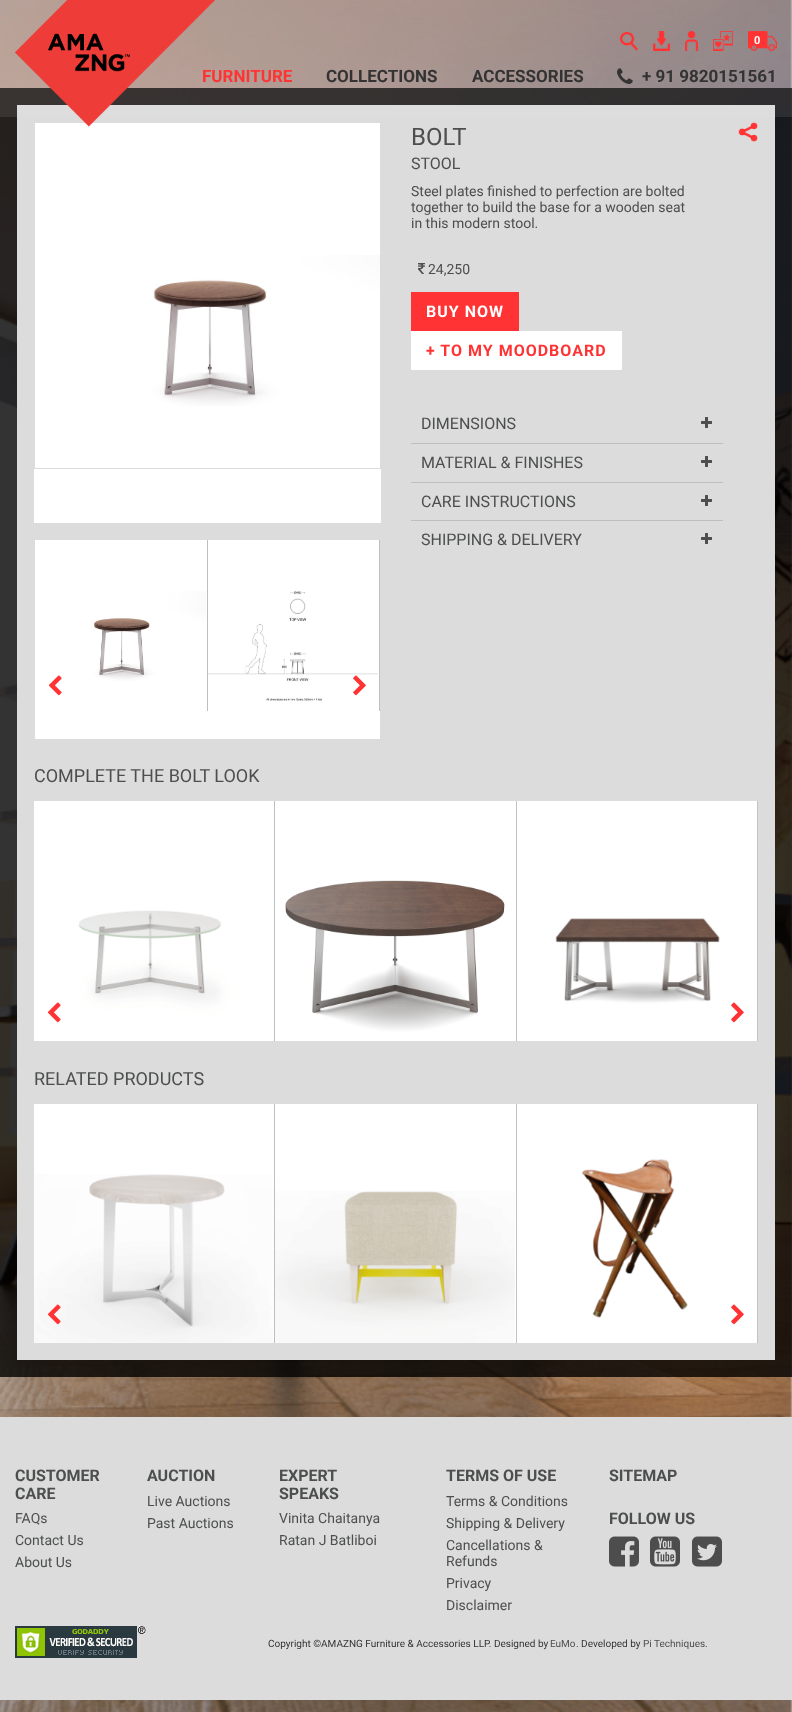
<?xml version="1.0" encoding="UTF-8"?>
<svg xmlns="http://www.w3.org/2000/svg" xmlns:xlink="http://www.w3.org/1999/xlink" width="792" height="1712">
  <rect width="100%" height="100%" fill="#ffffff" />
  <image x="0" y="0" width="792" height="1712" xlink:href="image1.png" />
  <rect y="88" width="792" height="1289" fill="#000000" fill-opacity="0.8" />
  <rect x="17" y="105" width="758" height="1255" fill="#dcdcdc" />
  <rect width="792" height="117" fill="#ebebec" fill-opacity="0.1" />
  <image x="620" y="32" width="18" height="19" xlink:href="image3.png" />
  <image x="653" y="31" width="17" height="20" xlink:href="image4.png" />
  <image x="685" y="31" width="13" height="20" xlink:href="image5.png" />
  <image x="713" y="31" width="20" height="20" xlink:href="image6.png" />
  <image x="748" y="31" width="29" height="20" xlink:href="image7.png" />
  <image x="617" y="68" width="16" height="16" xlink:href="image8.png" />
  <rect x="34" y="123" width="347" height="400" fill="#ffffff" />
  <rect x="34.5" y="122.5" width="346" height="346" fill="none" stroke="#dcdcdc" />
  <image x="153" y="255" width="227" height="151" xlink:href="image9.png" />
  <rect x="35" y="710" width="345" height="29" fill="#ffffff" />
  <image x="35" y="540" width="172" height="171" xlink:href="image10.png" />
  <rect x="207" y="540" width="1" height="171" fill="#bcbec0" />
  <image x="35" y="591" width="171" height="120" xlink:href="image11.png" />
  <image x="208" y="540" width="171" height="171" xlink:href="image12.png" />
  <rect x="379" y="540" width="1" height="171" fill="#bcbec0" />
  <image x="208" y="591" width="170" height="120" xlink:href="image13.png" />
  <image x="48" y="675" width="14" height="21" xlink:href="image14.png" />
  <image x="353" y="675" width="13" height="21" xlink:href="image15.png" />
  <image x="738" y="122" width="20" height="20" xlink:href="image16.png" />
  <image x="418" y="263" width="7" height="11" xlink:href="image17.png" />
  <rect x="411" y="292" width="108" height="39" fill="#ff3333" />
  <rect x="411" y="331" width="211" height="39" fill="#ffffff" />
  <rect x="411" y="443" width="312" height="1" fill="#bcbec0" />
  <image x="701" y="417" width="11" height="11" xlink:href="image18.png" />
  <rect x="411" y="482" width="312" height="1" fill="#bcbec0" />
  <image x="701" y="456" width="11" height="11" xlink:href="image18.png" />
  <rect x="411" y="520" width="312" height="1" fill="#bcbec0" />
  <image x="701" y="495" width="11" height="11" xlink:href="image18.png" />
  <image x="701" y="533" width="11" height="11" xlink:href="image18.png" />
  <image x="34" y="1040" width="1" height="1" xlink:href="image24.png" />
  <image x="34" y="801" width="240" height="240" xlink:href="image19.png" />
  <rect x="274" y="801" width="1" height="240" fill="#bcbec0" />
  <image x="34" y="910" width="240" height="131" xlink:href="image20.png" />
  <image x="275" y="801" width="243" height="240" xlink:href="image21.png" />
  <rect x="516" y="801" width="1" height="240" fill="#bcbec0" />
  <image x="275" y="880" width="240" height="161" xlink:href="image22.png" />
  <image x="517" y="801" width="240" height="240" xlink:href="image19.png" />
  <image x="516" y="801" width="241" height="240" xlink:href="image23.png" />
  <rect x="757" y="801" width="1" height="240" fill="#c1c3c5" />
  <image x="47" y="1002" width="14" height="21" xlink:href="image14.png" />
  <image x="731" y="1002" width="13" height="21" xlink:href="image15.png" />
  <image x="34" y="1342" width="1" height="1" xlink:href="image24.png" />
  <image x="34" y="1104" width="242" height="239" xlink:href="image25.png" />
  <rect x="274" y="1104" width="1" height="239" fill="#bcbec0" />
  <image x="34" y="1174" width="240" height="169" xlink:href="image26.png" />
  <image x="275" y="1104" width="243" height="239" xlink:href="image27.png" />
  <rect x="516" y="1104" width="1" height="239" fill="#bcbec0" />
  <image x="275" y="1191" width="240" height="152" xlink:href="image28.png" />
  <image x="517" y="1104" width="240" height="239" xlink:href="image29.png" />
  <rect x="757" y="1104" width="1" height="239" fill="#bcbec0" />
  <image x="516" y="1104" width="240" height="239" xlink:href="image30.png" />
  <image x="757" y="1104" width="1" height="239" xlink:href="image31.png" />
  <image x="47" y="1304" width="14" height="21" xlink:href="image32.png" />
  <image x="731" y="1304" width="13" height="21" xlink:href="image15.png" />
  <rect y="1417" width="792" height="283" fill="#dcdcdc" />
  <image x="609" y="1536" width="30" height="31" xlink:href="image33.png" />
  <image x="650" y="1536" width="30" height="31" xlink:href="image34.png" />
  <image x="692" y="1536" width="30" height="31" xlink:href="image35.png" />
  <image x="15" y="1626" width="131" height="32" xlink:href="image36.png" />
  <text x="754" y="44" style="font-family: Roboto; font-size: 11px; font-weight: bold; fill: #ffffff">0</text>
  <text x="202" y="82" style="font-family: Roboto; font-size: 17px; font-weight: bold; fill: #ff3333">FURNITURE</text>
  <image x="15" y="0" width="200" height="127" xlink:href="image2.png" />
  <text x="326" y="82" style="font-family: Roboto; font-size: 17px; font-weight: bold; fill: #333333">COLLECTIONS</text>
  <text x="472" y="82" style="font-family: Roboto; font-size: 17px; font-weight: bold; fill: #333333">ACCESSORIES</text>
  <text x="642" y="82" style="font-family: Roboto; font-size: 17px; font-weight: bold; fill: #333333">+ 91 9820151561</text>
  <text x="411" y="145" style="font-family: Roboto; font-size: 24px; fill: #4d4e4e">BOLT</text>
  <text x="411" y="169" style="font-family: Roboto; font-size: 16px; fill: #4d4e4e">STOOL</text>
  <text x="411" y="196" style="font-family: Roboto; font-size: 14px; fill: #4d4e4e">Steel plates finished to perfection are bolted</text>
  <text x="411" y="212" style="font-family: Roboto; font-size: 14px; fill: #4d4e4e">together to build the base for a wooden seat</text>
  <text x="411" y="228" style="font-family: Roboto; font-size: 14px; fill: #4d4e4e">in this modern stool.</text>
  <text x="428" y="274" style="font-family: Roboto; font-size: 14px; fill: #4d4e4e">24,250</text>
  <text x="426" y="317" style="font-family: Roboto; font-size: 16px; font-weight: bold; letter-spacing: 1px; fill: #ffffff">BUY NOW</text>
  <text x="426" y="356" style="font-family: Roboto; font-size: 16px; font-weight: bold; letter-spacing: 1px; fill: #ff3333">+ TO MY MOODBOARD</text>
  <text x="421" y="429" style="font-family: Roboto; font-size: 16px; fill: #4d4e4e">DIMENSIONS</text>
  <text x="421" y="468" style="font-family: Roboto; font-size: 16px; fill: #4d4e4e">MATERIAL &amp; FINISHES</text>
  <text x="421" y="507" style="font-family: Roboto; font-size: 16px; fill: #4d4e4e">CARE INSTRUCTIONS</text>
  <text x="421" y="545" style="font-family: Roboto; font-size: 16px; fill: #4d4e4e">SHIPPING &amp; DELIVERY</text>
  <text x="34" y="782" style="font-family: Roboto; font-size: 18px; fill: #4d4e4e">COMPLETE THE BOLT LOOK</text>
  <text x="34" y="1085" style="font-family: Roboto; font-size: 18px; fill: #4d4e4e">RELATED PRODUCTS</text>
  <text x="15" y="1481" style="font-family: Roboto; font-size: 16px; font-weight: bold; fill: #4d4e4e">CUSTOMER</text>
  <text x="15" y="1499" style="font-family: Roboto; font-size: 16px; font-weight: bold; fill: #4d4e4e">CARE</text>
  <text x="15" y="1523" style="font-family: Roboto; font-size: 14px; fill: #4d4e4e">FAQs</text>
  <text x="15" y="1545" style="font-family: Roboto; font-size: 14px; fill: #4d4e4e">Contact Us</text>
  <text x="15" y="1567" style="font-family: Roboto; font-size: 14px; fill: #4d4e4e">About Us</text>
  <text x="147" y="1481" style="font-family: Roboto; font-size: 16px; font-weight: bold; fill: #4d4e4e">AUCTION</text>
  <text x="147" y="1506" style="font-family: Roboto; font-size: 14px; fill: #4d4e4e">Live Auctions</text>
  <text x="147" y="1528" style="font-family: Roboto; font-size: 14px; fill: #4d4e4e">Past Auctions</text>
  <text x="279" y="1481" style="font-family: Roboto; font-size: 16px; font-weight: bold; fill: #4d4e4e">EXPERT</text>
  <text x="279" y="1499" style="font-family: Roboto; font-size: 16px; font-weight: bold; fill: #4d4e4e">SPEAKS</text>
  <text x="279" y="1523" style="font-family: Roboto; font-size: 14px; fill: #4d4e4e">Vinita Chaitanya</text>
  <text x="279" y="1545" style="font-family: Roboto; font-size: 14px; fill: #4d4e4e">Ratan J Batliboi</text>
  <text x="446" y="1481" style="font-family: Roboto; font-size: 16px; font-weight: bold; fill: #4d4e4e">TERMS OF USE</text>
  <text x="446" y="1506" style="font-family: Roboto; font-size: 14px; fill: #4d4e4e">Terms &amp; Conditions</text>
  <text x="446" y="1528" style="font-family: Roboto; font-size: 14px; fill: #4d4e4e">Shipping &amp; Delivery</text>
  <text x="446" y="1550" style="font-family: Roboto; font-size: 14px; fill: #4d4e4e">Cancellations &amp;</text>
  <text x="446" y="1566" style="font-family: Roboto; font-size: 14px; fill: #4d4e4e">Refunds</text>
  <text x="446" y="1588" style="font-family: Roboto; font-size: 14px; fill: #4d4e4e">Privacy</text>
  <text x="446" y="1610" style="font-family: Roboto; font-size: 14px; fill: #4d4e4e">Disclaimer</text>
  <text x="609" y="1481" style="font-family: Roboto; font-size: 16px; font-weight: bold; fill: #4d4e4e">SITEMAP</text>
  <text x="609" y="1524" style="font-family: Roboto; font-size: 16px; font-weight: bold; fill: #4d4e4e">FOLLOW US</text>
  <text x="268" y="1647" style="font-family: Roboto; font-size: 10px; fill: #333333">Copyright ©AMAZNG Furniture &amp; Accessories LLP. Designed by</text>
  <text x="550" y="1647" style="font-family: Roboto; font-size: 10px; fill: #4d4e4e">EuMo</text>
  <text x="576" y="1647" style="font-family: Roboto; font-size: 10px; fill: #333333">. Developed by</text>
  <text x="643" y="1647" style="font-family: Roboto; font-size: 10px; fill: #4d4e4e">Pi Techniques</text>
  <text x="705" y="1647" style="font-family: Roboto; font-size: 10px; fill: #333333">.</text>
</svg>
